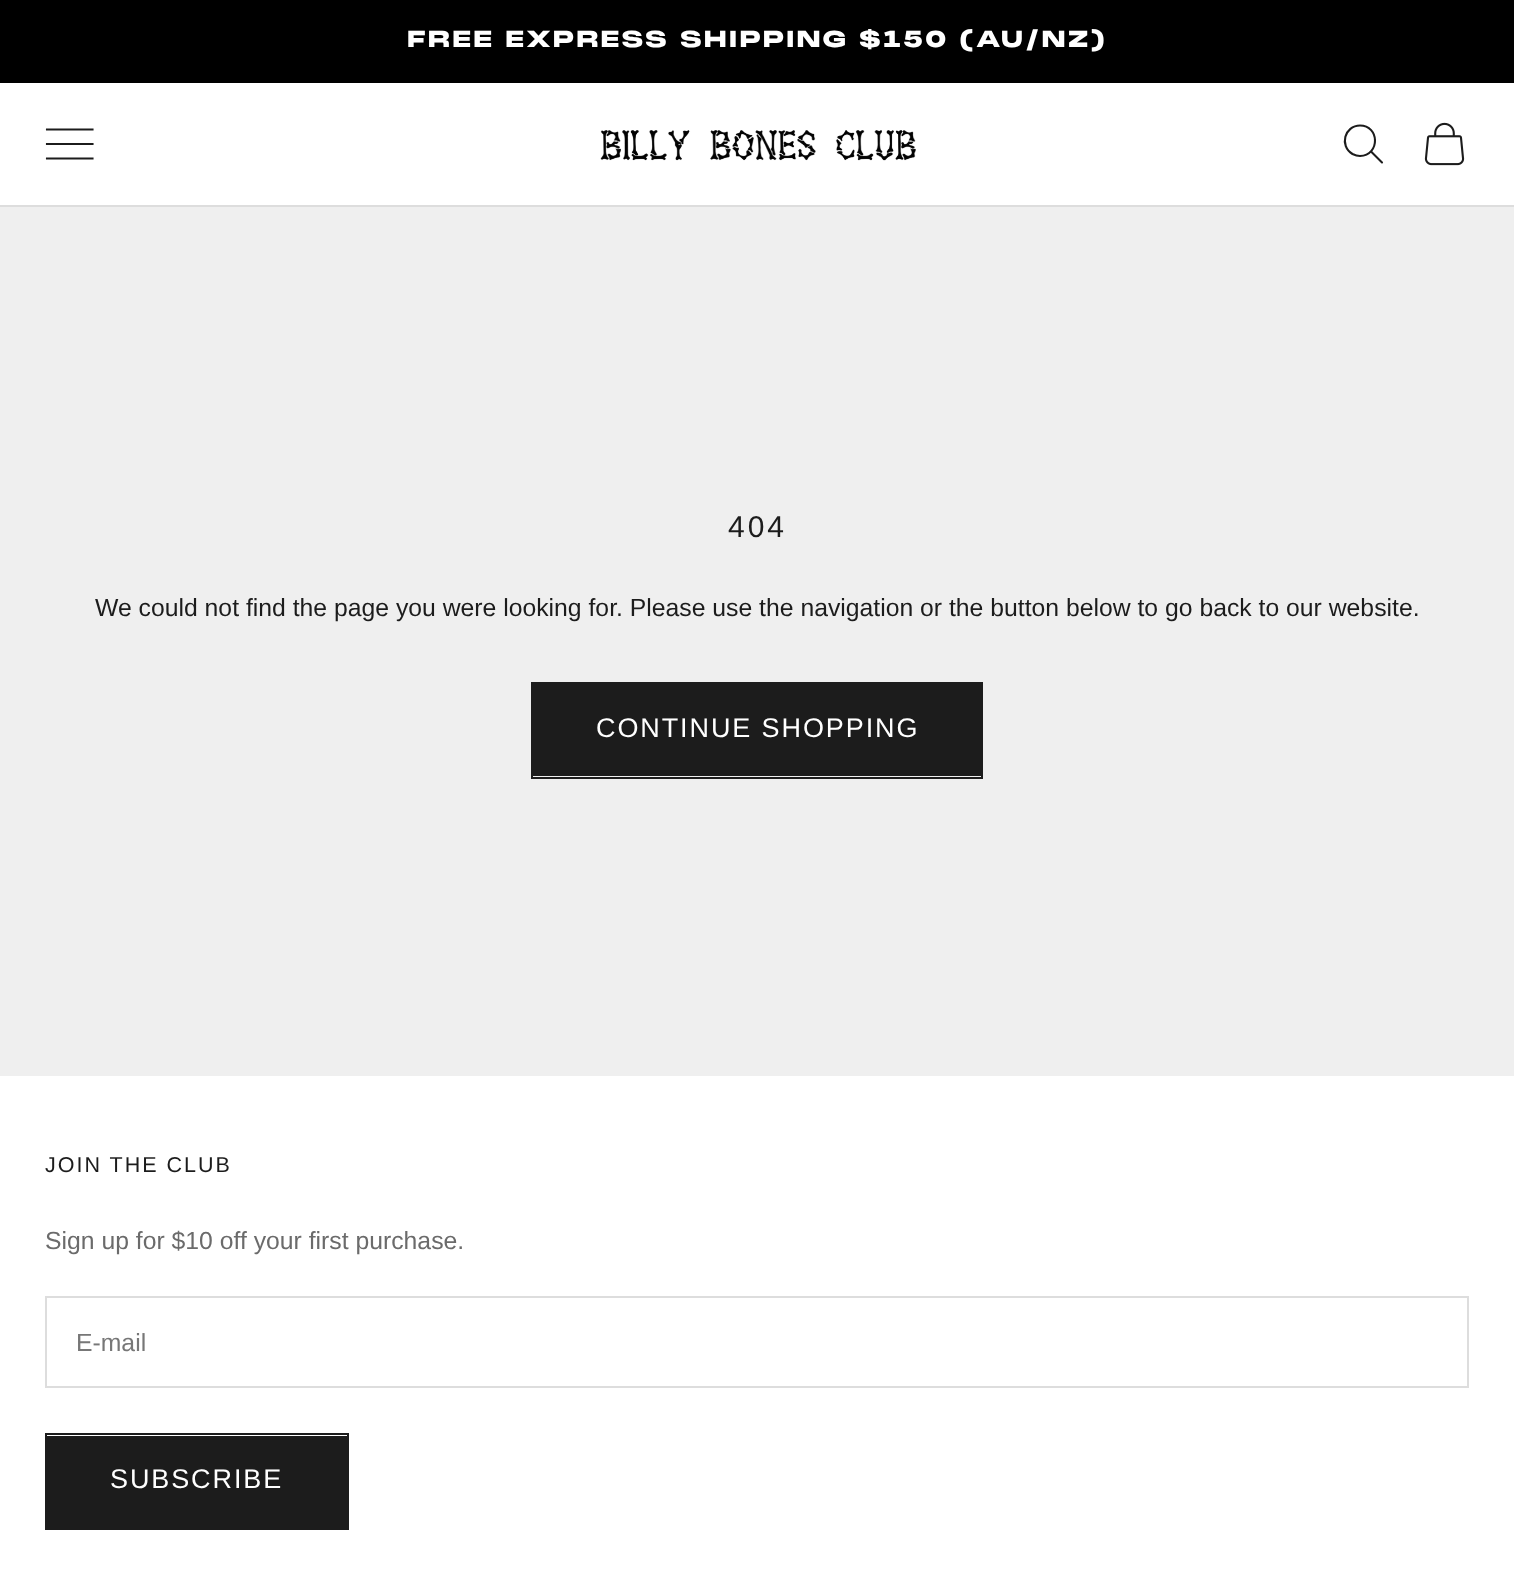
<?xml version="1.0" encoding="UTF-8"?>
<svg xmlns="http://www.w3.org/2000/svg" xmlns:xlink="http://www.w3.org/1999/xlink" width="1514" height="1578">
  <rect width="100%" height="100%" fill="#ffffff" />
  <rect width="1514" height="83" fill="#000000" />
  <rect y="205" width="1514" height="2" fill="#dddddd" />
  <path d="M 47 158.5 h 45.5 m -45.5 -14.5 h 45.5 m -45.5 -14.5 h 45.5" fill="none" stroke="#1c1c1c" stroke-width="2.1" stroke-linecap="square" />
  <image x="600" y="130" width="316" height="31" xlink:href="image1.png" />
  <path d="M 1360 125.5 c -15.5 0 -21 20.5 -7.5 28.5 c 2 1 5 2 7.5 2 c 20.5 -1 19.5 -30.5 0 -30.5 z" fill="none" stroke="#1c1c1c" stroke-width="2.1" />
  <path d="M 1371.5 152 l 10.5 10.5" fill="none" stroke="#1c1c1c" stroke-width="2.1" stroke-linecap="round" />
  <image x="1424" y="122" width="41" height="44" xlink:href="image2.png" />
  <rect y="207" width="1514" height="869" fill="#efefef" />
  <rect x="533" y="684" width="448" height="92" fill="#1c1c1c" />
  <rect x="532" y="683" width="450" height="95" fill="none" stroke="#1c1c1c" stroke-width="2" />
  <rect x="46" y="1297" width="1422" height="90" fill="none" stroke="#dddddd" stroke-width="2" />
  <rect x="47" y="1436" width="300" height="92" fill="#1c1c1c" />
  <rect x="46" y="1434" width="302" height="95" fill="none" stroke="#1c1c1c" stroke-width="2" />
  <text x="407" y="47" style="font-family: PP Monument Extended; font-size: 22.5px; font-weight: 900; letter-spacing: 2px; fill: #ffffff">FREE EXPRESS SHIPPING $150 (AU/NZ)</text>
  <text x="728" y="537" style="font-family: Liberation Sans; font-size: 30px; letter-spacing: 3px; fill: #1c1c1c">404</text>
  <text x="95" y="616" style="font-family: Liberation Sans; font-size: 24.75px; fill: #1c1c1c">We could not find the page you were looking for. Please use the navigation or the button below to go back to our website.</text>
  <text x="596" y="737" style="font-family: Liberation Sans; font-size: 27px; letter-spacing: 1.9px; fill: #ffffff">CONTINUE SHOPPING</text>
  <text x="45" y="1172" style="font-family: Liberation Sans; font-size: 21.5px; letter-spacing: 2px; fill: #1c1c1c">JOIN THE CLUB</text>
  <text x="45" y="1249" style="font-family: Liberation Sans; font-size: 24.75px; fill: #6b6b6b">Sign up for $10 off your first purchase.</text>
  <text x="76" y="1351" style="font-family: Liberation Sans; font-size: 24.75px; fill: #777777">E-mail</text>
  <text x="110" y="1488" style="font-family: Liberation Sans; font-size: 27px; letter-spacing: 1.9px; fill: #ffffff">SUBSCRIBE</text>
</svg>
